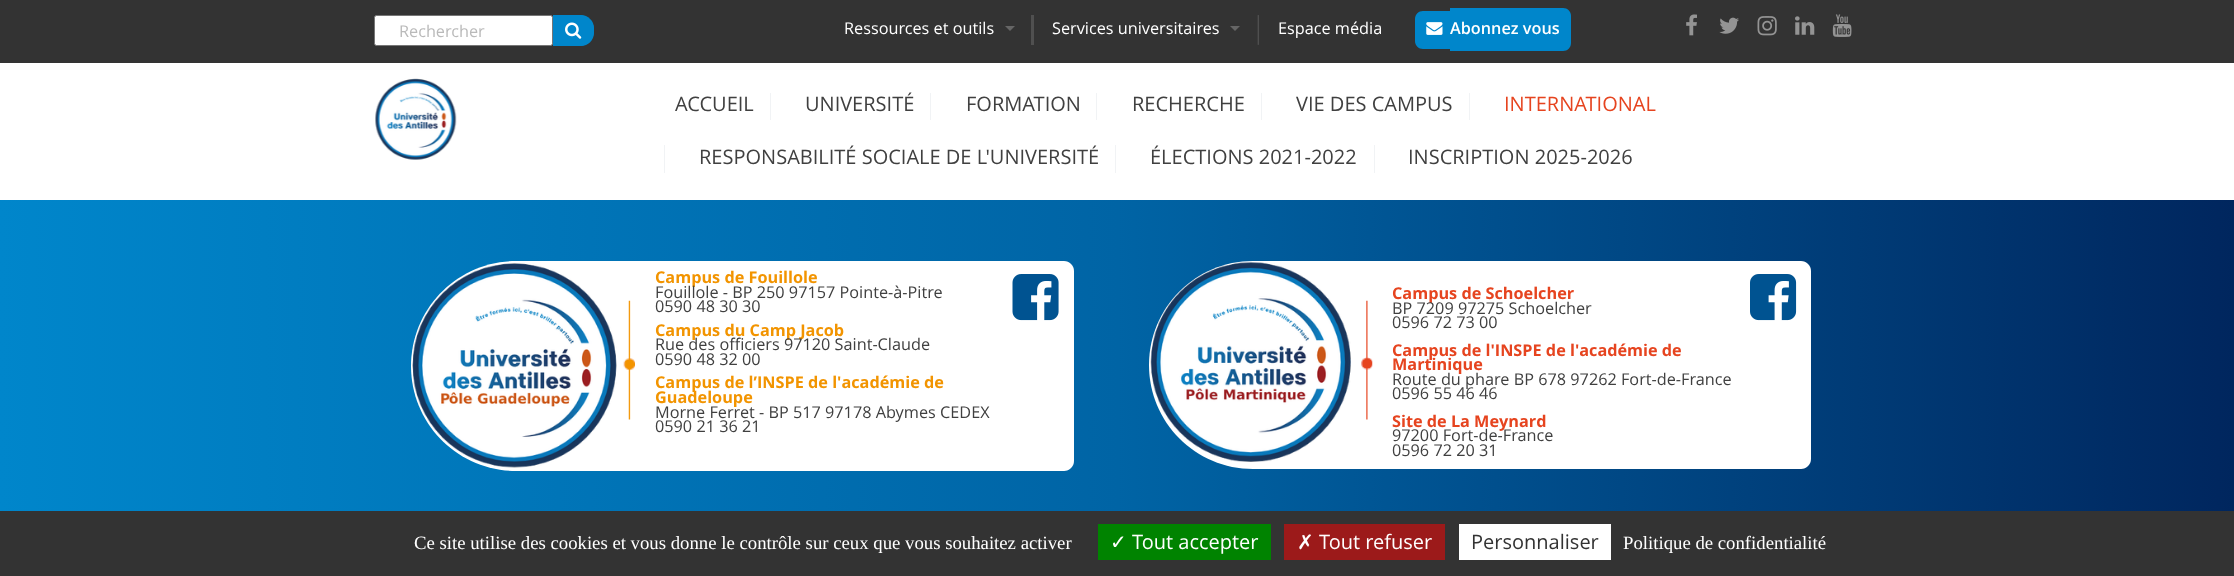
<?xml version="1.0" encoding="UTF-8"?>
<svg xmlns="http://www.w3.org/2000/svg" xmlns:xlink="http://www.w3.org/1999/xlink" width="2234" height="576">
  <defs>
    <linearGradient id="g1" gradientUnits="userSpaceOnUse" x1="0" y1="208" x2="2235" y2="207"><stop offset="0" stop-color="#0086cb" /><stop offset="0.5" stop-color="#0064a5" /><stop offset="1" stop-color="#00265e" /></linearGradient>
    <linearGradient id="g2" gradientUnits="userSpaceOnUse" x1="0" y1="370" x2="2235" y2="370"><stop offset="0" stop-color="#0086cb" /><stop offset="0.5" stop-color="#0064a5" /><stop offset="1" stop-color="#00265e" /></linearGradient>
  </defs>
  <rect width="100%" height="100%" fill="#ffffff" />
  <rect width="2234" height="63" fill="#333333" />
  <rect x="374.5" y="15.5" width="178" height="30" rx="2" fill="#ffffff" stroke="#767676" />
  <path d="M 553 15 h 28 c 7 0 13 6 13 13 v 5 c 0 7 -6 13 -13 13 h -28 z" fill="#0086cb" />
  <rect x="553" y="15" width="41" height="31" rx="15.5" fill="#0086cb" />
  <image x="565" y="22" width="17" height="17" xlink:href="image1.png" />
  <rect x="1031" y="15" width="3" height="30" fill="#505050" />
  <path d="M 1005 26 h 10 l -5 5 z" fill="#666666" />
  <image x="1257" y="15" width="2" height="30" xlink:href="image2.png" />
  <path d="M 1230 26 h 10 l -5 5 z" fill="#666666" />
  <path d="M 1423 11 h 27 v 38 h -27 c -4.5 0 -8 -3.5 -8 -8 v -22 c 0 -4.5 3.5 -8 8 -8 z" fill="#0086cb" />
  <image x="1426" y="22" width="17" height="13" xlink:href="image3.png" />
  <path d="M 1450 8 h 113 c 4.5 0 8 3.5 8 8 v 27 c 0 4.5 -3.5 8 -8 8 h -113 z" fill="#0086cb" />
  <image x="1686" y="14" width="11" height="22" xlink:href="image4.png" />
  <image x="1719" y="17" width="20" height="17" xlink:href="image5.png" />
  <image x="1757" y="16" width="20" height="20" xlink:href="image6.png" />
  <image x="1795" y="16" width="20" height="19" xlink:href="image7.png" />
  <image x="1832" y="14" width="20" height="23" xlink:href="image8.png" />
  <image x="375" y="78" width="82" height="82" xlink:href="image9.png" />
  <rect x="770" y="93" width="1" height="27" fill="#f1f3f5" />
  <rect x="930" y="93" width="1" height="27" fill="#f1f3f5" />
  <rect x="1096" y="93" width="1" height="27" fill="#f1f3f5" />
  <rect x="1261" y="93" width="1" height="27" fill="#f1f3f5" />
  <rect x="1469" y="93" width="1" height="27" fill="#f1f3f5" />
  <rect x="664" y="145" width="1" height="28" fill="#f1f3f5" />
  <rect x="1115" y="145" width="1" height="28" fill="#f1f3f5" />
  <rect x="1374" y="145" width="1" height="28" fill="#f1f3f5" />
  <rect y="200" width="2234" height="15" fill="url(#g1)" />
  <rect y="215" width="2234" height="296" fill="url(#g2)" />
  <path d="M 516 261 h 548 c 5.5 0 10 4.5 10 10 v 190 c 0 5.5 -4.5 10 -10 10 h -548 c -58 0 -105 -47 -105 -105 c 0 -58 47 -105 105 -105 z" fill="#ffffff" />
  <image x="412" y="263" width="205" height="205" xlink:href="image10.png" />
  <image x="623" y="300" width="12" height="120" xlink:href="image11.png" />
  <image x="1012" y="274" width="47" height="47" xlink:href="image12.png" />
  <path d="M 1253 261 h 548 c 5.5 0 10 4.5 10 10 v 188 c 0 5.5 -4.5 10 -10 10 h -548 c -57.5 0 -104 -46.5 -104 -104 c 0 -57.5 46.5 -104 104 -104 z" fill="#ffffff" />
  <image x="1150" y="262" width="201" height="200" xlink:href="image13.png" />
  <image x="1361" y="300" width="12" height="120" xlink:href="image14.png" />
  <image x="1750" y="274" width="47" height="47" xlink:href="image15.png" />
  <rect y="511" width="2234" height="65" fill="#333333" />
  <rect x="1098" y="524" width="173" height="36" fill="#008300" />
  <rect x="1284" y="524" width="161" height="36" fill="#9c1a1a" />
  <rect x="1459" y="524" width="152" height="36" fill="#ffffff" />
  <text x="399" y="37" style="font-family: Open Sans; font-size: 16.25px; fill: #bababa">Rechercher</text>
  <text x="844" y="34" style="font-family: Open Sans; font-size: 16.25px; fill: #ffffff">Ressources et outils</text>
  <text x="1052" y="34" style="font-family: Open Sans; font-size: 16.25px; fill: #ffffff">Services universitaires</text>
  <text x="1278" y="34" style="font-family: Open Sans; font-size: 16.25px; fill: #ffffff">Espace média</text>
  <text x="1450" y="34" style="font-family: Open Sans; font-size: 16.25px; font-weight: 600; fill: #ffffff">Abonnez vous</text>
  <text x="675" y="111" style="font-family: Open Sans; font-size: 20px; fill: #404040">ACCUEIL</text>
  <text x="805" y="111" style="font-family: Open Sans; font-size: 20px; fill: #404040">UNIVERSITÉ</text>
  <text x="966" y="111" style="font-family: Open Sans; font-size: 20px; fill: #404040">FORMATION</text>
  <text x="1132" y="111" style="font-family: Open Sans; font-size: 20px; fill: #404040">RECHERCHE</text>
  <text x="1296" y="111" style="font-family: Open Sans; font-size: 20px; fill: #404040">VIE DES CAMPUS</text>
  <text x="1504" y="111" style="font-family: Open Sans; font-size: 20px; fill: #e6441f">INTERNATIONAL</text>
  <text x="699" y="164" style="font-family: Open Sans; font-size: 20px; fill: #404040">RESPONSABILITÉ SOCIALE DE L'UNIVERSITÉ</text>
  <text x="1150" y="164" style="font-family: Open Sans; font-size: 20px; fill: #404040">ÉLECTIONS 2021-2022</text>
  <text x="1408" y="164" style="font-family: Open Sans; font-size: 20px; fill: #404040">INSCRIPTION 2025-2026</text>
  <text x="655" y="283" style="font-family: Open Sans; font-size: 16.25px; font-weight: bold; fill: #f29400">Campus de Fouillole</text>
  <text x="655" y="298" style="font-family: Open Sans; font-size: 16.25px; fill: #404040">Fouillole - BP 250 97157 Pointe-à-Pitre</text>
  <text x="655" y="312" style="font-family: Open Sans; font-size: 16.25px; fill: #404040">0590 48 30 30</text>
  <text x="655" y="336" style="font-family: Open Sans; font-size: 16.25px; font-weight: bold; fill: #f29400">Campus du Camp Jacob</text>
  <text x="655" y="350" style="font-family: Open Sans; font-size: 16.25px; fill: #404040">Rue des officiers 97120 Saint-Claude</text>
  <text x="655" y="365" style="font-family: Open Sans; font-size: 16.25px; fill: #404040">0590 48 32 00</text>
  <text x="655" y="388" style="font-family: Open Sans; font-size: 16.25px; font-weight: bold; fill: #f29400">Campus de l’INSPE de l'académie de</text>
  <text x="655" y="403" style="font-family: Open Sans; font-size: 16.25px; font-weight: bold; fill: #f29400">Guadeloupe</text>
  <text x="655" y="418" style="font-family: Open Sans; font-size: 16.25px; fill: #404040">Morne Ferret - BP 517 97178 Abymes CEDEX</text>
  <text x="655" y="432" style="font-family: Open Sans; font-size: 16.25px; fill: #404040">0590 21 36 21</text>
  <text x="1392" y="299" style="font-family: Open Sans; font-size: 16.25px; font-weight: bold; fill: #e6441f">Campus de Schoelcher</text>
  <text x="1392" y="314" style="font-family: Open Sans; font-size: 16.25px; fill: #404040">BP 7209 97275 Schoelcher</text>
  <text x="1392" y="328" style="font-family: Open Sans; font-size: 16.25px; fill: #404040">0596 72 73 00</text>
  <text x="1392" y="356" style="font-family: Open Sans; font-size: 16.25px; font-weight: bold; fill: #e6441f">Campus de l'INSPE de l'académie de</text>
  <text x="1392" y="370" style="font-family: Open Sans; font-size: 16.25px; font-weight: bold; fill: #e6441f">Martinique</text>
  <text x="1392" y="385" style="font-family: Open Sans; font-size: 16.25px; fill: #404040">Route du phare BP 678 97262 Fort-de-France</text>
  <text x="1392" y="399" style="font-family: Open Sans; font-size: 16.25px; fill: #404040">0596 55 46 46</text>
  <text x="1392" y="427" style="font-family: Open Sans; font-size: 16.25px; font-weight: bold; fill: #e6441f">Site de La Meynard</text>
  <text x="1392" y="441" style="font-family: Open Sans; font-size: 16.25px; fill: #404040">97200 Fort-de-France</text>
  <text x="1392" y="456" style="font-family: Open Sans; font-size: 16.25px; fill: #404040">0596 72 20 31</text>
  <text x="414" y="549" style="font-family: Liberation Serif; font-size: 18.75px; fill: #ffffff">Ce site utilise des cookies et vous donne le contrôle sur ceux que vous souhaitez activer</text>
  <text x="1110" y="549" style="font-family: DejaVu Sans; font-size: 20px; fill: #ffffff">✓</text>
  <text x="1132" y="549" style="font-family: Open Sans; font-size: 20px; fill: #ffffff">Tout accepter</text>
  <text x="1297" y="549" style="font-family: DejaVu Sans; font-size: 20px; fill: #ffffff">✗</text>
  <text x="1319" y="549" style="font-family: Open Sans; font-size: 20px; fill: #ffffff">Tout refuser</text>
  <text x="1471" y="549" style="font-family: Open Sans; font-size: 20px; fill: #333333">Personnaliser</text>
  <text x="1623" y="549" style="font-family: Liberation Serif; font-size: 18.75px; fill: #ffffff">Politique de confidentialité</text>
</svg>
